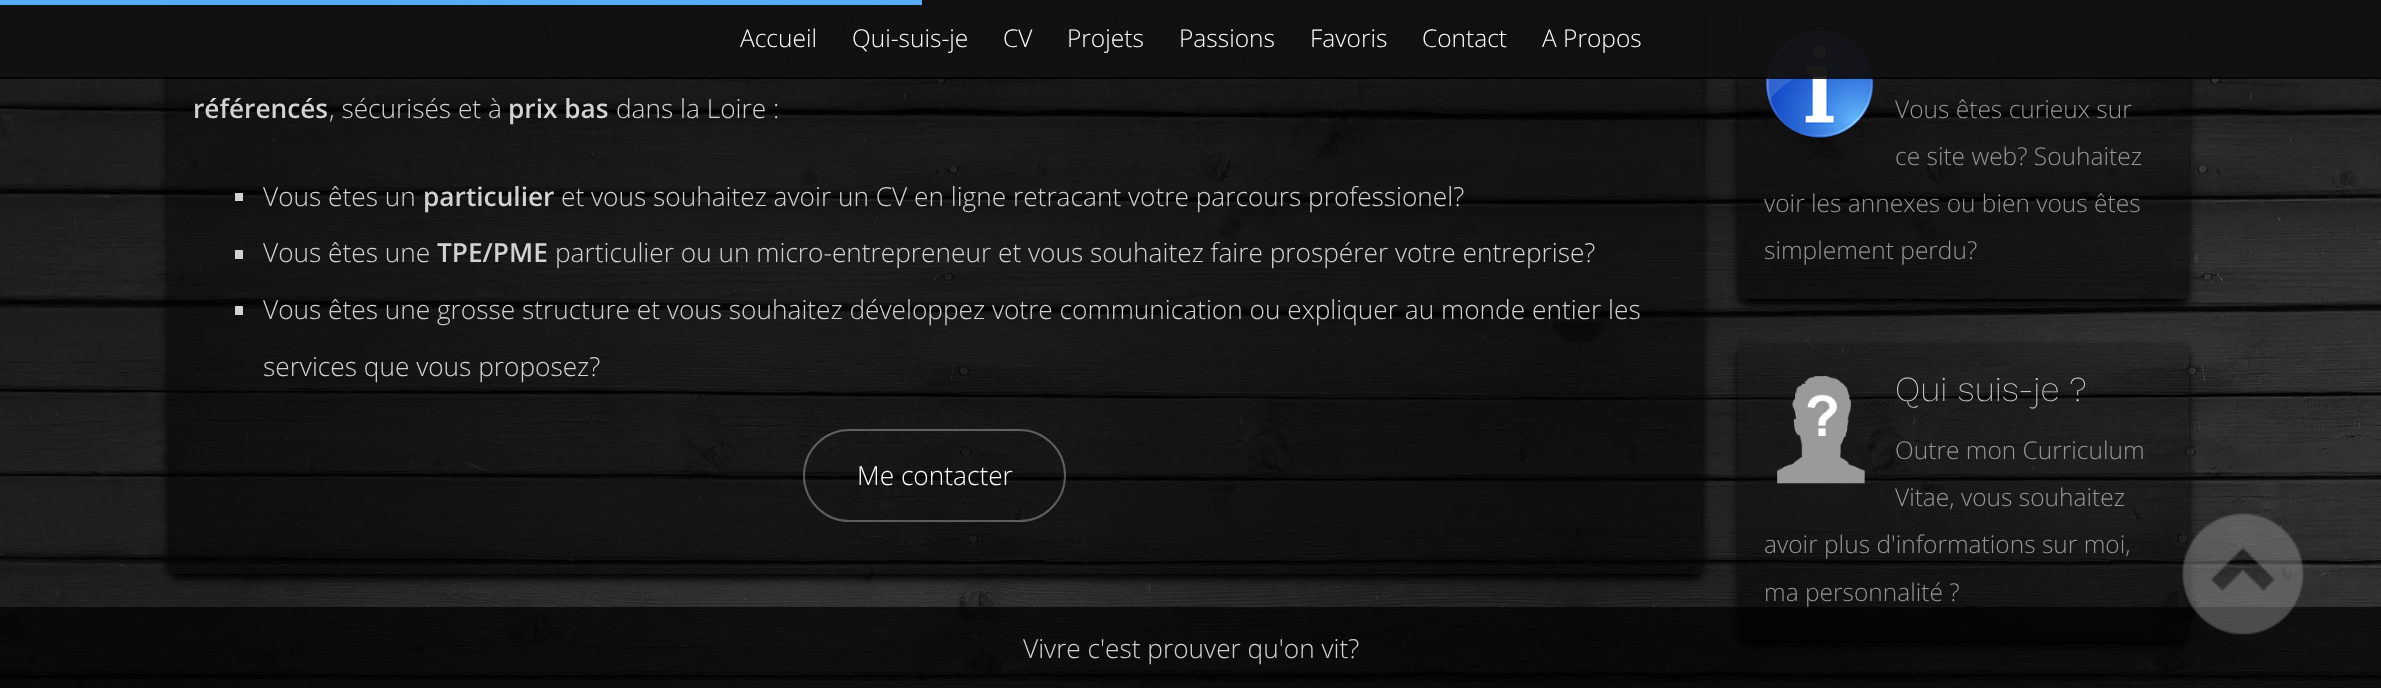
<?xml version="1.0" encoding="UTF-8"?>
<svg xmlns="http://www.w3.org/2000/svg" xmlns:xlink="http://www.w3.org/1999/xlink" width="2381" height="688">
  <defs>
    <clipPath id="clip1"><path d="M 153 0 h 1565 v 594 h -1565 z m 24 -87 h 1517 c 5 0 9 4 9 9 v 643 c 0 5 -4 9 -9 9 h -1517 c -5 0 -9 -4 -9 -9 v -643 c 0 -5 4 -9 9 -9 z" clip-rule="evenodd" /></clipPath>
    <linearGradient id="g1" gradientUnits="userSpaceOnUse" x1="935" y1="-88" x2="935" y2="574"><stop offset="0" stop-color="#000000" stop-opacity="0.24" /><stop offset="1" stop-color="#000000" stop-opacity="0.59" /></linearGradient>
    <clipPath id="clip2"><path d="M 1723 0 h 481 v 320 h -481 z m 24 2 h 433 c 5 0 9 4 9 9 v 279 c 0 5 -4 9 -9 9 h -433 c -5 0 -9 -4 -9 -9 v -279 c 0 -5 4 -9 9 -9 z" clip-rule="evenodd" /></clipPath>
    <linearGradient id="g2" gradientUnits="userSpaceOnUse" x1="1964" y1="1.7" x2="1964" y2="299"><stop offset="0" stop-color="#000000" stop-opacity="0.2" /><stop offset="1" stop-color="#000000" stop-opacity="0.56" /></linearGradient>
    <clipPath id="clip3"><path d="M 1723 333 h 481 v 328 h -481 z m 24 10 h 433 c 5 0 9 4 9 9 v 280 c 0 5 -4 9 -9 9 h -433 c -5 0 -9 -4 -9 -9 v -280 c 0 -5 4 -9 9 -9 z" clip-rule="evenodd" /></clipPath>
    <linearGradient id="g3" gradientUnits="userSpaceOnUse" x1="1964" y1="343" x2="1964" y2="641"><stop offset="0" stop-color="#000000" stop-opacity="0.2" /><stop offset="1" stop-color="#000000" stop-opacity="0.56" /></linearGradient>
  </defs>
  <rect width="100%" height="100%" fill="#ffffff" />
  <image x="0" y="0" width="2381" height="688" xlink:href="image1.png" />
  <g clip-path="url(#clip1)">
    <rect x="168" y="-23" width="1535" height="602" rx="9" fill="#000000" filter="blur(4.5px)" />
  </g>
  <rect x="168" y="-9" width="1535" height="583" rx="9" fill="url(#g1)" />
  <g clip-path="url(#clip2)">
    <rect x="1738" y="7" width="451" height="298" rx="9" fill="#000000" filter="blur(4.5px)" />
  </g>
  <rect x="1738" y="2" width="451" height="297" rx="9" fill="url(#g2)" />
  <image x="1765" y="29" width="109" height="109" xlink:href="image2.png" />
  <rect width="2381" height="79" fill="#000000" fill-opacity="0.83" />
  <rect width="2381" height="77" fill="#151515" fill-opacity="0.75" />
  <rect width="922" height="5" fill="#56adff" />
  <rect x="235" y="193" width="8" height="8" fill="#d2d2d2" />
  <rect x="235" y="250" width="8" height="9" fill="#d2d2d2" />
  <rect x="235" y="306" width="8" height="9" fill="#d2d2d2" />
  <rect x="804" y="430" width="261" height="91" rx="45.5" fill="none" stroke="#cdcdcd" stroke-opacity="0.4" stroke-width="2" />
  <g clip-path="url(#clip3)">
    <rect x="1738" y="348" width="451" height="298" rx="9" fill="#000000" filter="blur(4.5px)" />
  </g>
  <rect x="1738" y="343" width="451" height="298" rx="9" fill="url(#g3)" />
  <image x="1777" y="375" width="88" height="109" xlink:href="image3.png" />
  <rect y="607" width="2381" height="81" fill="#000000" fill-opacity="0.7" />
  <image x="2182" y="513" width="122" height="122" xlink:href="image4.png" />
  <text x="740" y="47" style="font-family: Open Sans; font-size: 24.5px; font-weight: 300; fill: #ffffff">Accueil</text>
  <text x="852" y="47" style="font-family: Open Sans; font-size: 24.5px; font-weight: 300; fill: #ffffff">Qui-suis-je</text>
  <text x="1003" y="47" style="font-family: Open Sans; font-size: 24.5px; font-weight: 300; fill: #ffffff">CV</text>
  <text x="1067" y="47" style="font-family: Open Sans; font-size: 24.5px; font-weight: 300; fill: #ffffff">Projets</text>
  <text x="1179" y="47" style="font-family: Open Sans; font-size: 24.5px; font-weight: 300; fill: #ffffff">Passions</text>
  <text x="1310" y="47" style="font-family: Open Sans; font-size: 24.5px; font-weight: 300; fill: #ffffff">Favoris</text>
  <text x="1422" y="47" style="font-family: Open Sans; font-size: 24.5px; font-weight: 300; fill: #ffffff">Contact</text>
  <text x="1542" y="47" style="font-family: Open Sans; font-size: 24.5px; font-weight: 300; fill: #ffffff">A Propos</text>
  <text x="193" y="118" style="font-family: Open Sans; font-size: 26.25px; font-weight: 600; fill: #d2d2d2">référencés</text>
  <text x="329" y="118" style="font-family: Open Sans; font-size: 26.25px; font-weight: 300; fill: #d2d2d2">, sécurisés et à</text>
  <text x="508" y="118" style="font-family: Open Sans; font-size: 26.25px; font-weight: 600; fill: #d2d2d2">prix bas</text>
  <text x="616" y="118" style="font-family: Open Sans; font-size: 26.25px; font-weight: 300; fill: #d2d2d2">dans la Loire :</text>
  <text x="263" y="206" style="font-family: Open Sans; font-size: 26.25px; font-weight: 300; fill: #d2d2d2">Vous êtes un</text>
  <text x="423" y="206" style="font-family: Open Sans; font-size: 26.25px; font-weight: 600; fill: #d2d2d2">particulier</text>
  <text x="561" y="206" style="font-family: Open Sans; font-size: 26.25px; font-weight: 300; fill: #d2d2d2">et vous souhaitez avoir un CV en ligne retracant votre parcours professionel?</text>
  <text x="263" y="262" style="font-family: Open Sans; font-size: 26.25px; font-weight: 300; fill: #d2d2d2">Vous êtes une</text>
  <text x="437" y="262" style="font-family: Open Sans; font-size: 26.25px; font-weight: 600; fill: #d2d2d2">TPE/PME</text>
  <text x="555" y="262" style="font-family: Open Sans; font-size: 26.25px; font-weight: 300; fill: #d2d2d2">particulier ou un micro-entrepreneur et vous souhaitez faire prospérer votre entreprise?</text>
  <text x="263" y="319" style="font-family: Open Sans; font-size: 26.25px; font-weight: 300; fill: #d2d2d2">Vous êtes une grosse structure et vous souhaitez développez votre communication ou expliquer au monde entier les</text>
  <text x="263" y="376" style="font-family: Open Sans; font-size: 26.25px; font-weight: 300; fill: #d2d2d2">services que vous proposez?</text>
  <text x="857" y="485" style="font-family: Open Sans; font-size: 26.25px; font-weight: 300; fill: #ffffff">Me contacter</text>
  <text x="1895" y="118" style="font-family: Open Sans; font-size: 24.5px; font-weight: 300; fill: #969696">Vous êtes curieux sur</text>
  <text x="1895" y="165" style="font-family: Open Sans; font-size: 24.5px; font-weight: 300; fill: #969696">ce site web? Souhaitez</text>
  <text x="1764" y="212" style="font-family: Open Sans; font-size: 24.5px; font-weight: 300; fill: #969696">voir les annexes ou bien vous êtes</text>
  <text x="1764" y="259" style="font-family: Open Sans; font-size: 24.5px; font-weight: 300; fill: #969696">simplement perdu?</text>
  <text x="1895" y="401" style="font-family: Work Sans; font-size: 35px; font-weight: 200; fill: #d2d2d2">Qui suis-je ?</text>
  <text x="1895" y="459" style="font-family: Open Sans; font-size: 24.5px; font-weight: 300; fill: #969696">Outre mon Curriculum</text>
  <text x="1895" y="506" style="font-family: Open Sans; font-size: 24.5px; font-weight: 300; fill: #969696">Vitae, vous souhaitez</text>
  <text x="1764" y="553" style="font-family: Open Sans; font-size: 24.5px; font-weight: 300; fill: #969696">avoir plus d'informations sur moi,</text>
  <text x="1764" y="601" style="font-family: Open Sans; font-size: 24.5px; font-weight: 300; fill: #969696">ma personnalité ?</text>
  <text x="1023" y="658" style="font-family: Open Sans; font-size: 26.25px; font-weight: 300; fill: #d2d2d2">Vivre c'est prouver qu'on vit?</text>
</svg>
